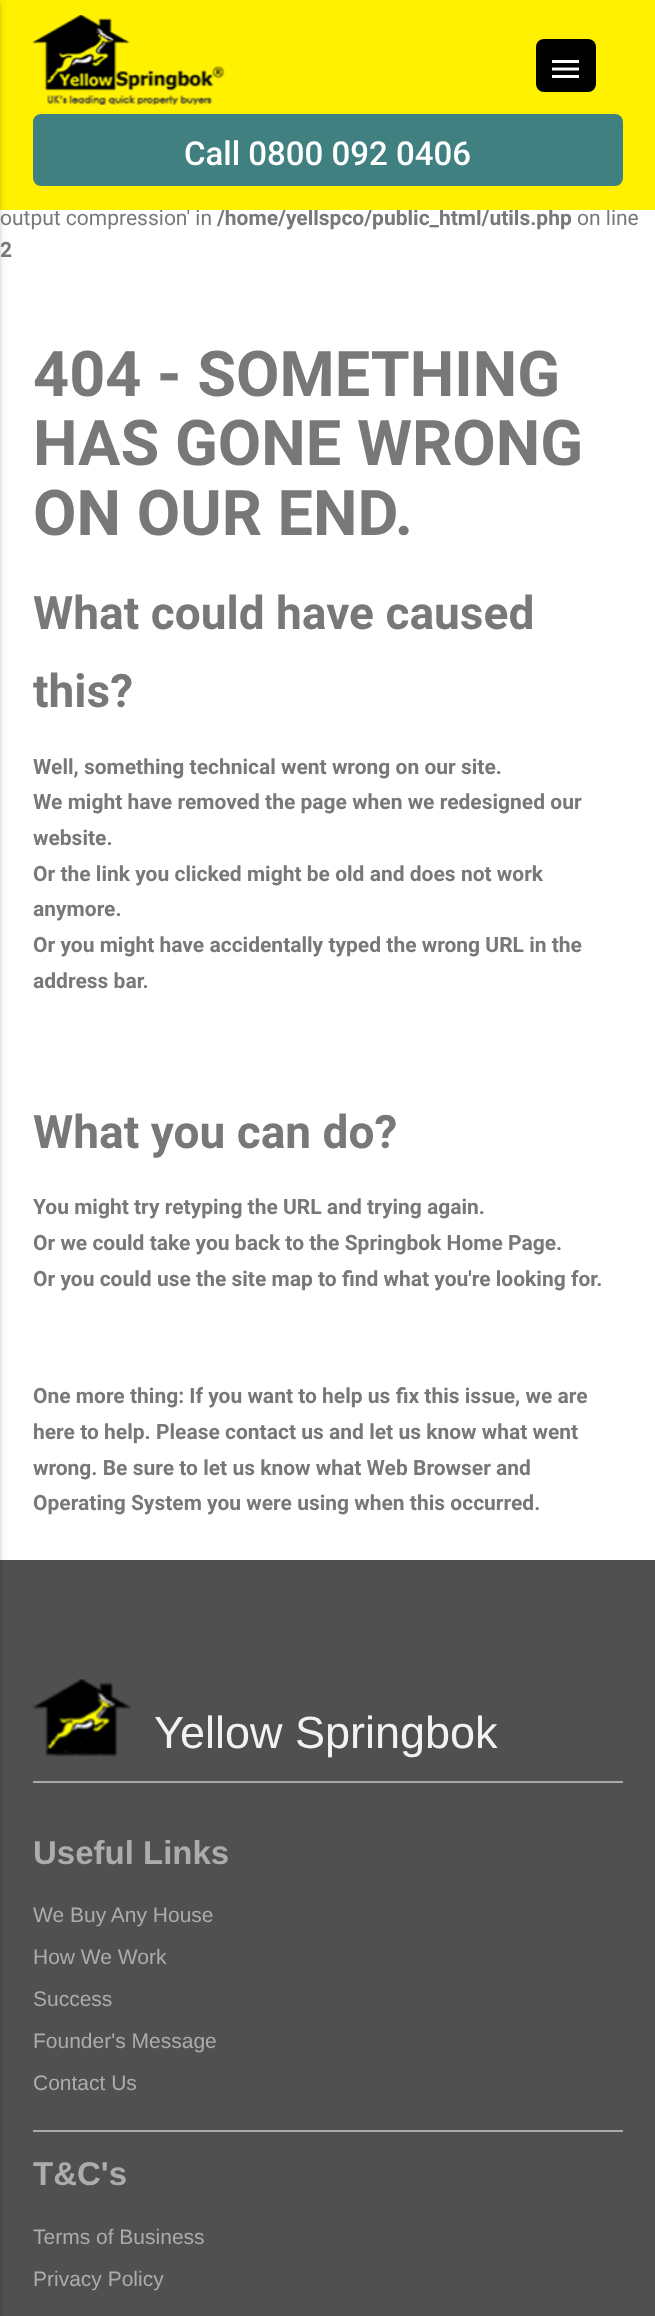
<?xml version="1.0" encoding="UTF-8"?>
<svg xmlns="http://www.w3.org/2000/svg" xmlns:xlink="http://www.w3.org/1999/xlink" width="655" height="2316">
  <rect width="100%" height="100%" fill="#ffffff" />
  <rect y="1560" width="655" height="756" fill="#505050" />
  <rect x="33" y="1781" width="590" height="2" fill="#a9a9a9" />
  <image x="33" y="1679" width="99" height="78" xlink:href="image3.png" />
  <rect x="33" y="2130" width="590" height="2" fill="#a9a9a9" />
  <text x="0" y="225" style="font-family: Roboto; font-size: 21px; fill: #787878">output compression' in</text>
  <text x="217" y="225" style="font-family: Roboto; font-size: 21px; font-weight: bold; fill: #787878">/home/yellspco/public_html/utils.php</text>
  <text x="577" y="225" style="font-family: Roboto; font-size: 21px; fill: #787878">on line</text>
  <rect width="655" height="210" fill="#fff100" />
  <rect x="-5" y="3" width="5" height="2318" fill="#000000" fill-opacity="0.14" filter="blur(1.5px)" />
  <rect x="-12" y="2" width="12" height="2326" fill="#000000" fill-opacity="0.12" filter="blur(4px)" />
  <rect x="536" y="39" width="60" height="53" rx="8" fill="#000000" />
  <image x="552" y="60" width="27" height="18" xlink:href="image1.png" />
  <rect x="33" y="114" width="590" height="72" rx="8" fill="#408080" />
  <text x="184" y="165" style="font-family: Roboto; font-size: 33px; font-weight: 500; fill: #ffffff">Call 0800 092 0406</text>
  <image x="32" y="15" width="193" height="90" xlink:href="image2.png" />
  <text x="0" y="257" style="font-family: Roboto; font-size: 21px; font-weight: bold; fill: #787878">2</text>
  <text x="33" y="396" style="font-family: Roboto; font-size: 63px; font-weight: bold; fill: #787878">404 - SOMETHING</text>
  <text x="33" y="465" style="font-family: Roboto; font-size: 63px; font-weight: bold; fill: #787878">HAS GONE WRONG</text>
  <text x="33" y="535" style="font-family: Roboto; font-size: 63px; font-weight: bold; fill: #787878">ON OUR END.</text>
  <text x="33" y="629" style="font-family: Roboto; font-size: 46px; font-weight: bold; fill: #787878">What could have caused</text>
  <text x="33" y="707" style="font-family: Roboto; font-size: 46px; font-weight: bold; fill: #787878">this?</text>
  <text x="33" y="774" style="font-family: Roboto; font-size: 21px; font-weight: bold; fill: #787878">Well, something technical went wrong on our site.</text>
  <text x="33" y="809" style="font-family: Roboto; font-size: 21px; font-weight: bold; fill: #787878">We might have removed the page when we redesigned our</text>
  <text x="33" y="845" style="font-family: Roboto; font-size: 21px; font-weight: bold; fill: #787878">website.</text>
  <text x="33" y="881" style="font-family: Roboto; font-size: 21px; font-weight: bold; fill: #787878">Or the link you clicked might be old and does not work</text>
  <text x="33" y="916" style="font-family: Roboto; font-size: 21px; font-weight: bold; fill: #787878">anymore.</text>
  <text x="33" y="952" style="font-family: Roboto; font-size: 21px; font-weight: bold; fill: #787878">Or you might have accidentally typed the wrong URL in the</text>
  <text x="33" y="988" style="font-family: Roboto; font-size: 21px; font-weight: bold; fill: #787878">address bar.</text>
  <text x="33" y="1148" style="font-family: Roboto; font-size: 46px; font-weight: bold; fill: #787878">What you can do?</text>
  <text x="33" y="1214" style="font-family: Roboto; font-size: 21px; font-weight: bold; fill: #787878">You might try retyping the URL and trying again.</text>
  <text x="33" y="1250" style="font-family: Roboto; font-size: 21px; font-weight: bold; fill: #787878">Or we could take you back to the Springbok Home Page.</text>
  <text x="33" y="1286" style="font-family: Roboto; font-size: 21px; font-weight: bold; fill: #787878">Or you could use the site map to find what you're looking for.</text>
  <text x="33" y="1403" style="font-family: Roboto; font-size: 21px; font-weight: bold; fill: #787878">One more thing: If you want to help us fix this issue, we are</text>
  <text x="33" y="1439" style="font-family: Roboto; font-size: 21px; font-weight: bold; fill: #787878">here to help. Please contact us and let us know what went</text>
  <text x="33" y="1475" style="font-family: Roboto; font-size: 21px; font-weight: bold; fill: #787878">wrong. Be sure to let us know what Web Browser and</text>
  <text x="33" y="1510" style="font-family: Roboto; font-size: 21px; font-weight: bold; fill: #787878">Operating System you were using when this occurred.</text>
  <text x="154" y="1748" style="font-family: Liberation Sans; font-size: 45px; fill: #f2f2f2">Yellow Springbok</text>
  <text x="33" y="1864" style="font-family: Liberation Sans; font-size: 33px; font-weight: bold; fill: #acacac">Useful Links</text>
  <text x="33" y="1922" style="font-family: Liberation Sans; font-size: 21px; fill: #acacac">We Buy Any House</text>
  <text x="33" y="1964" style="font-family: Liberation Sans; font-size: 21px; fill: #acacac">How We Work</text>
  <text x="33" y="2006" style="font-family: Liberation Sans; font-size: 21px; fill: #acacac">Success</text>
  <text x="33" y="2048" style="font-family: Liberation Sans; font-size: 21px; fill: #acacac">Founder's Message</text>
  <text x="33" y="2090" style="font-family: Liberation Sans; font-size: 21px; fill: #acacac">Contact Us</text>
  <text x="33" y="2185" style="font-family: Liberation Sans; font-size: 33px; font-weight: bold; fill: #acacac">T&amp;C's</text>
  <text x="33" y="2244" style="font-family: Liberation Sans; font-size: 21px; fill: #acacac">Terms of Business</text>
  <text x="33" y="2286" style="font-family: Liberation Sans; font-size: 21px; fill: #acacac">Privacy Policy</text>
</svg>
